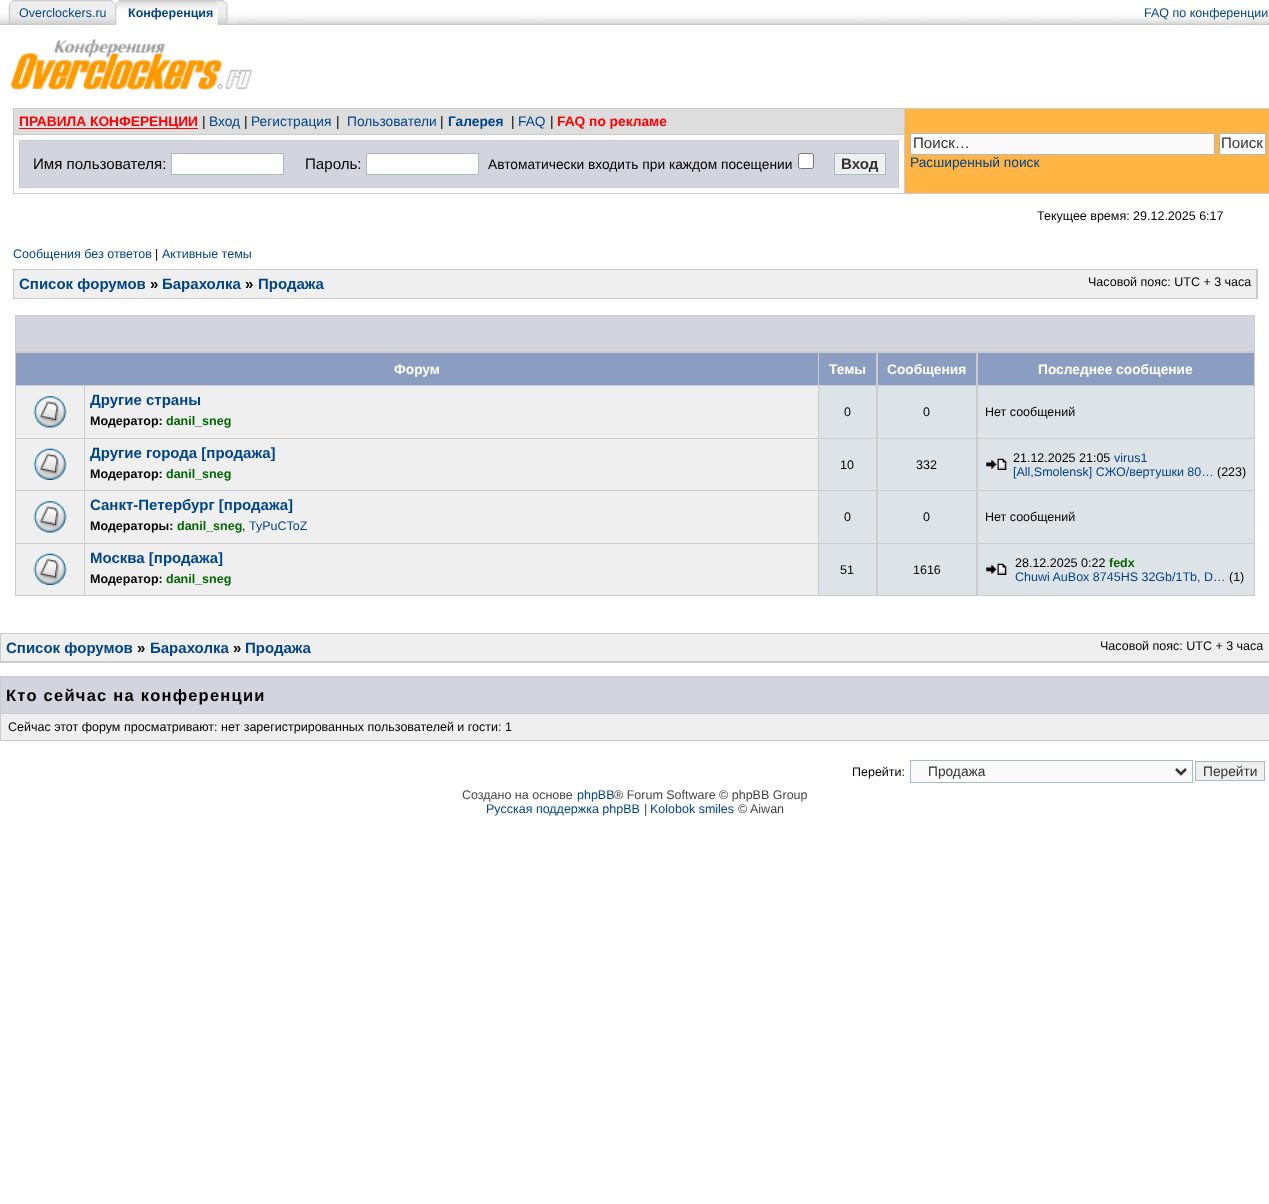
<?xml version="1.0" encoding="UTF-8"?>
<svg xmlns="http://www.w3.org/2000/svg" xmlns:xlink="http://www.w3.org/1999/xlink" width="1269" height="1204">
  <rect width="100%" height="100%" fill="#ffffff" />
  <image x="18" y="0" width="89" height="25" xlink:href="image2.png" />
  <image x="0" y="0" width="19" height="25" xlink:href="image1.png" />
  <image x="106" y="0" width="19" height="25" xlink:href="image3.png" />
  <image x="125" y="0" width="93" height="10" xlink:href="image4.png" />
  <image x="217" y="0" width="19" height="25" xlink:href="image5.png" />
  <image x="236" y="15" width="1033" height="10" xlink:href="image6.png" />
  <image x="11" y="38" width="242" height="53" xlink:href="image7.png" />
  <rect x="14" y="109" width="890" height="25" fill="#dddddd" />
  <rect x="13" y="108" width="1256" height="1" fill="#cccccc" />
  <rect x="13" y="193" width="1256" height="1" fill="#cccccc" />
  <rect x="13" y="108" width="1" height="86" fill="#cccccc" />
  <rect x="19" y="128" width="179" height="1" fill="#ff0000" />
  <rect x="905" y="109" width="364" height="84" fill="#ffb444" />
  <rect x="13" y="134" width="892" height="1" fill="#cccccc" />
  <rect x="904" y="108" width="1" height="86" fill="#cccccc" />
  <rect x="910.5" y="133.5" width="304" height="21" fill="#fafafa" stroke="#a9b8c2" />
  <rect x="1219.5" y="133.5" width="46" height="21" fill="#fafafa" stroke="#a9b8c2" />
  <rect x="19.5" y="140.5" width="879" height="47" fill="#d3d4de" stroke="#cccccc" />
  <rect x="171.5" y="153.5" width="112" height="21" fill="#ffffff" stroke="#a9b8c2" />
  <rect x="366.5" y="153.5" width="112" height="21" fill="#ffffff" stroke="#a9b8c2" />
  <rect x="798.5" y="153.5" width="15" height="15" rx="2" fill="#ffffff" stroke="#767676" />
  <rect x="834.5" y="153.5" width="51" height="21" fill="#efefef" stroke="#a9b8c2" />
  <rect x="13" y="269" width="1245" height="30" fill="#cccccc" />
  <rect x="14" y="270" width="1242" height="28" fill="#efefef" />
  <rect x="15" y="315" width="1240" height="281" fill="#cccccc" />
  <rect x="16" y="316" width="1238" height="35" fill="#d3d4de" />
  <rect x="16" y="353" width="802" height="32" fill="#8b9ec2" />
  <rect x="819" y="353" width="57" height="32" fill="#8b9ec2" />
  <rect x="878" y="353" width="98" height="32" fill="#8b9ec2" />
  <rect x="978" y="353" width="276" height="32" fill="#8b9ec2" />
  <rect x="16" y="386" width="68" height="52" fill="#efefef" />
  <image x="33" y="396" width="34" height="32" xlink:href="image8.png" />
  <rect x="85" y="386" width="733" height="52" fill="#efefef" />
  <rect x="819" y="386" width="57" height="52" fill="#dee3e7" />
  <rect x="878" y="386" width="98" height="52" fill="#dee3e7" />
  <rect x="978" y="386" width="276" height="52" fill="#dee3e7" />
  <rect x="16" y="439" width="68" height="51" fill="#efefef" />
  <image x="33" y="448" width="34" height="32" xlink:href="image9.png" />
  <rect x="85" y="439" width="733" height="51" fill="#efefef" />
  <rect x="819" y="439" width="57" height="51" fill="#dee3e7" />
  <rect x="878" y="439" width="98" height="51" fill="#dee3e7" />
  <rect x="978" y="439" width="276" height="51" fill="#dee3e7" />
  <image x="986" y="458" width="21" height="12" xlink:href="image10.png" />
  <rect x="16" y="491" width="68" height="52" fill="#efefef" />
  <image x="33" y="501" width="34" height="32" xlink:href="image8.png" />
  <rect x="85" y="491" width="733" height="52" fill="#efefef" />
  <rect x="819" y="491" width="57" height="52" fill="#dee3e7" />
  <rect x="878" y="491" width="98" height="52" fill="#dee3e7" />
  <rect x="978" y="491" width="276" height="52" fill="#dee3e7" />
  <rect x="16" y="544" width="68" height="51" fill="#efefef" />
  <image x="33" y="553" width="34" height="32" xlink:href="image9.png" />
  <rect x="85" y="544" width="733" height="51" fill="#efefef" />
  <rect x="819" y="544" width="57" height="51" fill="#dee3e7" />
  <rect x="878" y="544" width="98" height="51" fill="#dee3e7" />
  <rect x="978" y="544" width="276" height="51" fill="#dee3e7" />
  <image x="986" y="563" width="21" height="12" xlink:href="image10.png" />
  <rect y="633" width="1269" height="30" fill="#cccccc" />
  <rect x="1" y="634" width="1268" height="27" fill="#efefef" />
  <rect y="676" width="1269" height="65" fill="#cccccc" />
  <rect x="1" y="678" width="1268" height="35" fill="#d3d4de" />
  <rect x="1" y="714" width="1268" height="26" fill="#efefef" />
  <rect x="910.5" y="760.5" width="282" height="22" fill="#fafafa" stroke="#a9b8c2" />
  <path d="M 1176 769 l 5 5 l 5 -5" fill="none" stroke="#333333" stroke-width="2.5" />
  <rect x="1195.5" y="761.5" width="69" height="19" fill="#efefef" stroke="#a9b8c2" />
  <text x="19" y="17" style="font-family: Liberation Sans; font-size: 12.5px; fill: #004488">Overclockers.ru</text>
  <text x="128" y="17" style="font-family: Liberation Sans; font-size: 12.5px; font-weight: bold; fill: #004488">Конференция</text>
  <text x="1144" y="17" style="font-family: Liberation Sans; font-size: 12.5px; fill: #004488">FAQ по конференции</text>
  <text x="19" y="126" style="font-family: Liberation Sans; font-size: 13.75px; font-weight: bold; fill: #ff0000">ПРАВИЛА КОНФЕРЕНЦИИ</text>
  <text x="202" y="126" style="font-family: Liberation Sans; font-size: 13.75px; fill: #000000">|</text>
  <text x="209" y="126" style="font-family: Liberation Sans; font-size: 13.75px; fill: #004488">Вход</text>
  <text x="244" y="126" style="font-family: Liberation Sans; font-size: 13.75px; fill: #000000">|</text>
  <text x="251" y="126" style="font-family: Liberation Sans; font-size: 13.75px; fill: #004488">Регистрация</text>
  <text x="336" y="126" style="font-family: Liberation Sans; font-size: 13.75px; fill: #000000">|</text>
  <text x="347" y="126" style="font-family: Liberation Sans; font-size: 13.75px; fill: #004488">Пользователи</text>
  <text x="440" y="126" style="font-family: Liberation Sans; font-size: 13.75px; fill: #000000">|</text>
  <text x="448" y="126" style="font-family: Liberation Sans; font-size: 13.75px; font-weight: bold; fill: #004488">Галерея</text>
  <text x="511" y="126" style="font-family: Liberation Sans; font-size: 13.75px; fill: #000000">|</text>
  <text x="518" y="126" style="font-family: Liberation Sans; font-size: 13.75px; fill: #004488">FAQ</text>
  <text x="550" y="126" style="font-family: Liberation Sans; font-size: 13.75px; fill: #000000">|</text>
  <text x="557" y="126" style="font-family: Liberation Sans; font-size: 13.75px; font-weight: bold; fill: #ff0000">FAQ по рекламе</text>
  <text x="913" y="148" style="font-family: Liberation Sans; font-size: 15.1px; fill: #333333">Поиск…</text>
  <text x="1221" y="148" style="font-family: Liberation Sans; font-size: 15.1px; fill: #333333">Поиск</text>
  <text x="910" y="167" style="font-family: Liberation Sans; font-size: 13.75px; fill: #004488">Расширенный поиск</text>
  <text x="33" y="169" style="font-family: Liberation Sans; font-size: 15.1px; fill: #000000">Имя пользователя:</text>
  <text x="305" y="169" style="font-family: Liberation Sans; font-size: 15.1px; fill: #000000">Пароль:</text>
  <text x="488" y="169" style="font-family: Liberation Sans; font-size: 13.75px; fill: #000000">Автоматически входить при каждом посещении</text>
  <text x="841" y="169" style="font-family: Liberation Sans; font-size: 15.1px; font-weight: bold; fill: #333333">Вход</text>
  <text x="1037" y="220" style="font-family: Liberation Sans; font-size: 12.5px; fill: #000000">Текущее время: 29.12.2025 6:17</text>
  <text x="13" y="258" style="font-family: Liberation Sans; font-size: 12.5px; fill: #004488">Сообщения без ответов</text>
  <text x="155" y="258" style="font-family: Liberation Sans; font-size: 12.5px; fill: #000000">|</text>
  <text x="162" y="258" style="font-family: Liberation Sans; font-size: 12.5px; fill: #004488">Активные темы</text>
  <text x="19" y="289" style="font-family: Liberation Sans; font-size: 15px; font-weight: bold; fill: #004488">Список форумов</text>
  <text x="150" y="289" style="font-family: Liberation Sans; font-size: 15px; font-weight: bold; fill: #000000">»</text>
  <text x="162" y="289" style="font-family: Liberation Sans; font-size: 15px; font-weight: bold; fill: #004488">Барахолка</text>
  <text x="245" y="289" style="font-family: Liberation Sans; font-size: 15px; font-weight: bold; fill: #000000">»</text>
  <text x="258" y="289" style="font-family: Liberation Sans; font-size: 15px; font-weight: bold; fill: #004488">Продажа</text>
  <text x="1088" y="286" style="font-family: Liberation Sans; font-size: 12.5px; fill: #000000">Часовой пояс: UTC + 3 часа</text>
  <text x="394" y="374" style="font-family: Liberation Sans; font-size: 13.75px; font-weight: bold; fill: #ffffff">Форум</text>
  <text x="829" y="374" style="font-family: Liberation Sans; font-size: 13.75px; font-weight: bold; fill: #ffffff">Темы</text>
  <text x="887" y="374" style="font-family: Liberation Sans; font-size: 13.75px; font-weight: bold; fill: #ffffff">Сообщения</text>
  <text x="1038" y="374" style="font-family: Liberation Sans; font-size: 13.75px; font-weight: bold; fill: #ffffff">Последнее сообщение</text>
  <text x="90" y="405" style="font-family: Liberation Sans; font-size: 15px; font-weight: bold; fill: #004488">Другие страны</text>
  <text x="90" y="425" style="font-family: Liberation Sans; font-size: 12.5px; font-weight: bold; fill: #000000">Модератор:</text>
  <text x="166" y="425" style="font-family: Liberation Sans; font-size: 12.5px; font-weight: bold; fill: #006600">danil_sneg</text>
  <text x="844" y="416" style="font-family: Liberation Sans; font-size: 12.5px; fill: #000000">0</text>
  <text x="923" y="416" style="font-family: Liberation Sans; font-size: 12.5px; fill: #000000">0</text>
  <text x="985" y="416" style="font-family: Liberation Sans; font-size: 12.5px; fill: #000000">Нет сообщений</text>
  <text x="90" y="458" style="font-family: Liberation Sans; font-size: 15px; font-weight: bold; fill: #004488">Другие города [продажа]</text>
  <text x="90" y="478" style="font-family: Liberation Sans; font-size: 12.5px; font-weight: bold; fill: #000000">Модератор:</text>
  <text x="166" y="478" style="font-family: Liberation Sans; font-size: 12.5px; font-weight: bold; fill: #006600">danil_sneg</text>
  <text x="840" y="469" style="font-family: Liberation Sans; font-size: 12.5px; fill: #000000">10</text>
  <text x="916" y="469" style="font-family: Liberation Sans; font-size: 12.5px; fill: #000000">332</text>
  <text x="1013" y="462" style="font-family: Liberation Sans; font-size: 12.5px; fill: #000000">21.12.2025 21:05</text>
  <text x="1114" y="462" style="font-family: Liberation Sans; font-size: 12.5px; fill: #004488">virus1</text>
  <text x="1013" y="476" style="font-family: Liberation Sans; font-size: 12.5px; fill: #004488">[All,Smolensk] СЖО/вертушки 80…</text>
  <text x="1217" y="476" style="font-family: Liberation Sans; font-size: 12.5px; fill: #000000">(223)</text>
  <text x="90" y="510" style="font-family: Liberation Sans; font-size: 15px; font-weight: bold; fill: #004488">Санкт-Петербург [продажа]</text>
  <text x="90" y="530" style="font-family: Liberation Sans; font-size: 12.5px; font-weight: bold; fill: #000000">Модераторы:</text>
  <text x="177" y="530" style="font-family: Liberation Sans; font-size: 12.5px; font-weight: bold; fill: #006600">danil_sneg</text>
  <text x="242" y="530" style="font-family: Liberation Sans; font-size: 12.5px; fill: #000000">,</text>
  <text x="249" y="530" style="font-family: Liberation Sans; font-size: 12.5px; fill: #004488">TyPuCToZ</text>
  <text x="844" y="521" style="font-family: Liberation Sans; font-size: 12.5px; fill: #000000">0</text>
  <text x="923" y="521" style="font-family: Liberation Sans; font-size: 12.5px; fill: #000000">0</text>
  <text x="985" y="521" style="font-family: Liberation Sans; font-size: 12.5px; fill: #000000">Нет сообщений</text>
  <text x="90" y="563" style="font-family: Liberation Sans; font-size: 15px; font-weight: bold; fill: #004488">Москва [продажа]</text>
  <text x="90" y="583" style="font-family: Liberation Sans; font-size: 12.5px; font-weight: bold; fill: #000000">Модератор:</text>
  <text x="166" y="583" style="font-family: Liberation Sans; font-size: 12.5px; font-weight: bold; fill: #006600">danil_sneg</text>
  <text x="840" y="574" style="font-family: Liberation Sans; font-size: 12.5px; fill: #000000">51</text>
  <text x="913" y="574" style="font-family: Liberation Sans; font-size: 12.5px; fill: #000000">1616</text>
  <text x="1015" y="567" style="font-family: Liberation Sans; font-size: 12.5px; fill: #000000">28.12.2025 0:22</text>
  <text x="1109" y="567" style="font-family: Liberation Sans; font-size: 12.5px; font-weight: bold; fill: #006600">fedx</text>
  <text x="1015" y="581" style="font-family: Liberation Sans; font-size: 12.5px; fill: #004488">Chuwi AuBox 8745HS 32Gb/1Tb, D…</text>
  <text x="1229" y="581" style="font-family: Liberation Sans; font-size: 12.5px; fill: #000000">(1)</text>
  <text x="6" y="653" style="font-family: Liberation Sans; font-size: 15px; font-weight: bold; fill: #004488">Список форумов</text>
  <text x="137" y="653" style="font-family: Liberation Sans; font-size: 15px; font-weight: bold; fill: #000000">»</text>
  <text x="150" y="653" style="font-family: Liberation Sans; font-size: 15px; font-weight: bold; fill: #004488">Барахолка</text>
  <text x="233" y="653" style="font-family: Liberation Sans; font-size: 15px; font-weight: bold; fill: #000000">»</text>
  <text x="245" y="653" style="font-family: Liberation Sans; font-size: 15px; font-weight: bold; fill: #004488">Продажа</text>
  <text x="1100" y="650" style="font-family: Liberation Sans; font-size: 12.5px; fill: #000000">Часовой пояс: UTC + 3 часа</text>
  <text x="6" y="701" style="font-family: Liberation Sans; font-size: 16.5px; font-weight: bold; letter-spacing: 1.25px; fill: #000000">Кто сейчас на конференции</text>
  <text x="8" y="731" style="font-family: Liberation Sans; font-size: 12.5px; fill: #000000">Сейчас этот форум просматривают: нет зарегистрированных пользователей и гости: 1</text>
  <text x="852" y="776" style="font-family: Liberation Sans; font-size: 12.5px; fill: #000000">Перейти:</text>
  <text x="928" y="776" style="font-family: Liberation Sans; font-size: 13.75px; fill: #333333">Продажа</text>
  <text x="1203" y="776" style="font-family: Liberation Sans; font-size: 13.75px; fill: #333333">Перейти</text>
  <text x="462" y="799" style="font-family: Liberation Sans; font-size: 12.5px; fill: #444444">Создано на основе</text>
  <text x="577" y="799" style="font-family: Liberation Sans; font-size: 12.5px; fill: #004488">phpBB</text>
  <text x="614" y="799" style="font-family: Liberation Sans; font-size: 12.5px; fill: #444444">® Forum Software © phpBB Group</text>
  <text x="486" y="813" style="font-family: Liberation Sans; font-size: 12.5px; fill: #004488">Русская поддержка phpBB</text>
  <text x="644" y="813" style="font-family: Liberation Sans; font-size: 12.5px; fill: #444444">|</text>
  <text x="650" y="813" style="font-family: Liberation Sans; font-size: 12.5px; fill: #004488">Kolobok smiles</text>
  <text x="738" y="813" style="font-family: Liberation Sans; font-size: 12.5px; fill: #444444">© Aiwan</text>
</svg>
